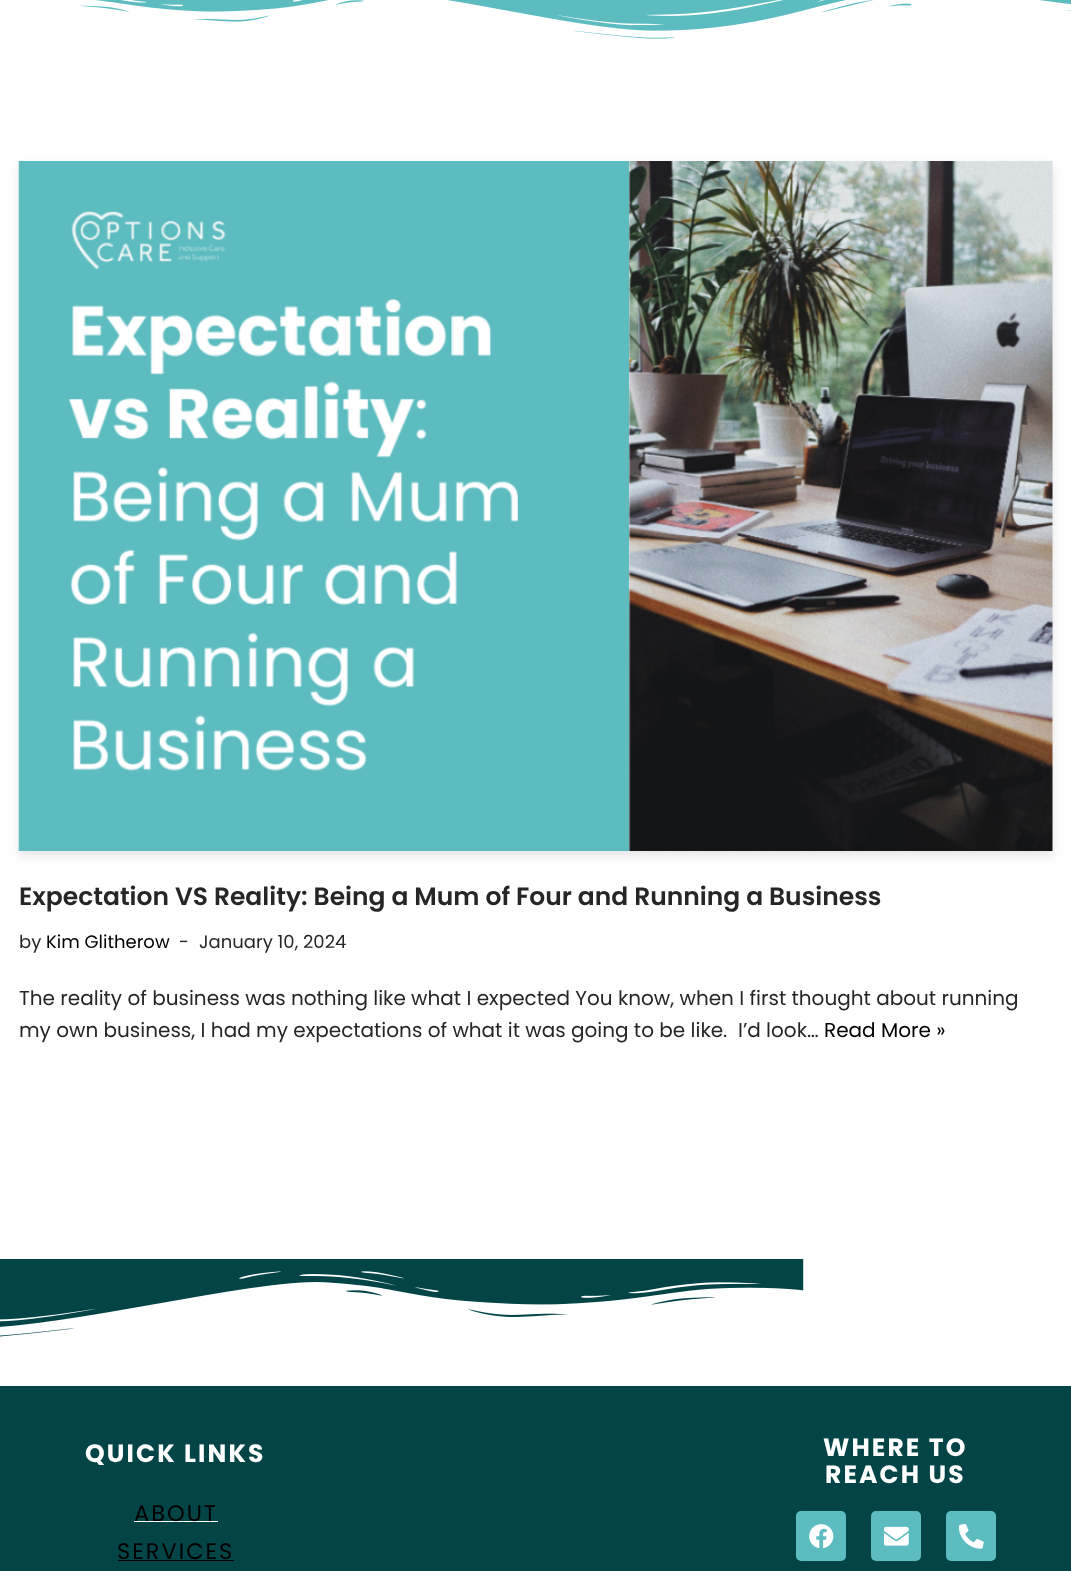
<?xml version="1.0" encoding="UTF-8"?>
<svg xmlns="http://www.w3.org/2000/svg" xmlns:xlink="http://www.w3.org/1999/xlink" width="1071" height="1571">
  <rect width="100%" height="100%" fill="#ffffff" />
  <image x="13" y="0" width="1058" height="39" xlink:href="image1.png" />
  <rect x="19" y="166" width="1034" height="690" fill="#000000" fill-opacity="0.1" filter="blur(5px)" />
  <image x="18" y="161" width="1035" height="690" xlink:href="image2.png" />
  <image x="0" y="1259" width="804" height="78" xlink:href="image3.png" />
  <rect y="1386" width="1071" height="185" fill="#034547" />
  <rect x="134" y="1521" width="84" height="1" fill="#ffffff" />
  <rect x="118" y="1560" width="116" height="1" fill="#000000" />
  <rect x="796" y="1511" width="50" height="50" rx="5" fill="#5cbcc0" />
  <image x="809" y="1524" width="25" height="25" xlink:href="image4.png" />
  <rect x="871" y="1511" width="50" height="50" rx="5" fill="#5cbcc0" />
  <image x="884" y="1526" width="25" height="20" xlink:href="image5.png" />
  <rect x="946" y="1511" width="50" height="50" rx="5" fill="#5cbcc0" />
  <image x="959" y="1524" width="25" height="25" xlink:href="image6.png" />
  <text x="19" y="905" style="font-family: Poppins; font-size: 25px; font-weight: 600; fill: #272626">Expectation VS Reality: Being a Mum of Four and Running a Business</text>
  <text x="19" y="948" style="font-family: Poppins; font-size: 18px; fill: #272626">by</text>
  <text x="46" y="948" style="font-family: Poppins; font-size: 18px; fill: #000000">Kim Glitherow</text>
  <text x="179" y="948" style="font-family: Poppins; font-size: 18px; fill: #272626">-</text>
  <text x="199" y="948" style="font-family: Poppins; font-size: 18px; fill: #272626">January 10, 2024</text>
  <text x="19" y="1005" style="font-family: Poppins; font-size: 20px; fill: #272626">The reality of business was nothing like what I expected You know, when I first thought about running</text>
  <text x="19" y="1037" style="font-family: Poppins; font-size: 20px; fill: #272626" xml:space="preserve">my own business, I had my expectations of what it was going to be like.  I’d look…</text>
  <text x="824" y="1037" style="font-family: Poppins; font-size: 20px; fill: #000000">Read More »</text>
  <text x="85" y="1462" style="font-family: Poppins; font-size: 25px; font-weight: bold; letter-spacing: 2.1px; fill: #ffffff">QUICK LINKS</text>
  <text x="134" y="1521" style="font-family: Poppins; font-size: 22.5px; letter-spacing: 2px; fill: #000000">ABOUT</text>
  <text x="117" y="1559" style="font-family: Poppins; font-size: 22.5px; letter-spacing: 2px; fill: #000000">SERVICES</text>
  <text x="823" y="1456" style="font-family: Poppins; font-size: 25px; font-weight: bold; letter-spacing: 2.1px; fill: #ffffff">WHERE TO</text>
  <text x="825" y="1483" style="font-family: Poppins; font-size: 25px; font-weight: bold; letter-spacing: 2.1px; fill: #ffffff">REACH US</text>
</svg>
